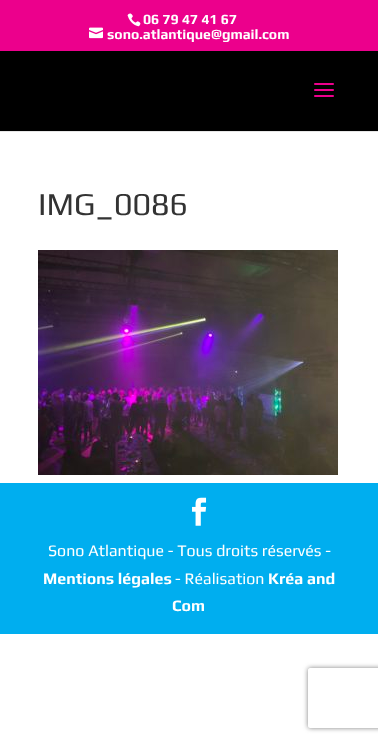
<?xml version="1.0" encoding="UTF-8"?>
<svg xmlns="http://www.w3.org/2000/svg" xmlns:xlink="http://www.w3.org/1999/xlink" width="378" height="742">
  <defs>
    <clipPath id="clip1"><path d="M 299 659 h 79 v 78 h -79 z m 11 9 h 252 c 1 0 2 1 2 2 v 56 c 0 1 -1 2 -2 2 h -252 c -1 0 -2 -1 -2 -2 v -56 c 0 -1 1 -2 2 -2 z" clip-rule="evenodd" /></clipPath>
  </defs>
  <rect width="100%" height="100%" fill="#ffffff" />
  <rect width="378" height="51" fill="#ec008c" />
  <image x="127" y="13" width="14" height="14" xlink:href="image1.png" />
  <image x="89" y="27" width="14" height="12" xlink:href="image2.png" />
  <rect y="131" width="378" height="1" fill="#e6e6e6" />
  <rect y="51" width="378" height="80" fill="#000000" />
  <image x="314" y="83" width="20" height="14" xlink:href="image3.png" />
  <image x="38" y="250" width="300" height="225" xlink:href="image4.png" />
  <rect y="483" width="378" height="151" fill="#00aeef" />
  <image x="192" y="497" width="15" height="29" xlink:href="image5.png" />
  <g clip-path="url(#clip1)">
    <rect x="308" y="668" width="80" height="60" rx="2" fill="#808080" filter="blur(2.5px)" />
  </g>
  <text x="143" y="24" style="font-family: Play; font-size: 14px; font-weight: bold; fill: #ffffff">06 79 47 41 67</text>
  <text x="107" y="39" style="font-family: Play; font-size: 14px; font-weight: bold; fill: #ffffff">sono.atlantique@gmail.com</text>
  <text x="38" y="215" style="font-family: Play; font-size: 32px; fill: #333333">IMG_0086</text>
  <text x="48" y="556" style="font-family: Play; font-size: 16px; fill: #ffffff">Sono Atlantique - Tous droits réservés -</text>
  <text x="43" y="584" style="font-family: Play; font-size: 16px; font-weight: bold; fill: #ffffff">Mentions légales</text>
  <text x="175" y="584" style="font-family: Play; font-size: 16px; fill: #ffffff">- Réalisation</text>
  <text x="268" y="584" style="font-family: Play; font-size: 16px; font-weight: bold; fill: #ffffff">Kréa and</text>
  <text x="172" y="611" style="font-family: Play; font-size: 16px; font-weight: bold; fill: #ffffff">Com</text>
</svg>
